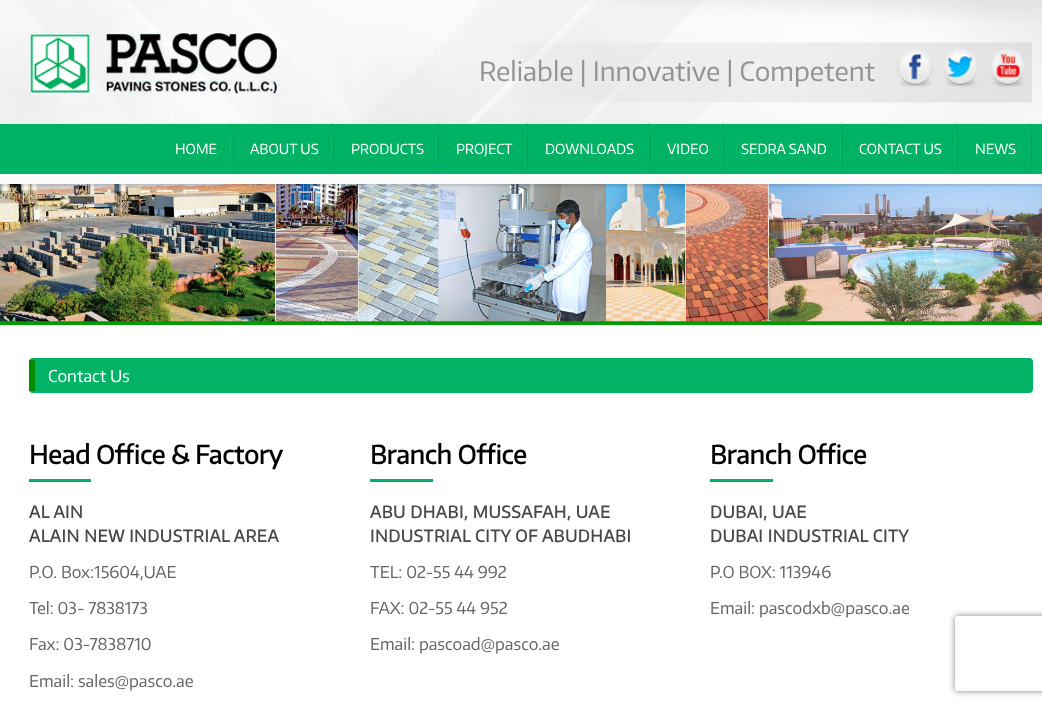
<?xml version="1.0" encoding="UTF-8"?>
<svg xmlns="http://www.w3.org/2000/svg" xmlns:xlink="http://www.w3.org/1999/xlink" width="1042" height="708">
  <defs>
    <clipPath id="clip1"><path d="M 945 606 h 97 v 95 h -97 z m 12.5 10 h 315 c 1.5 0 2.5 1 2.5 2.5 v 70 c 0 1.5 -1 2.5 -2.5 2.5 h -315 c -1.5 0 -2.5 -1 -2.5 -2.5 v -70 c 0 -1.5 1 -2.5 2.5 -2.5 z" clip-rule="evenodd" /></clipPath>
  </defs>
  <rect width="100%" height="100%" fill="#ffffff" />
  <rect y="321" width="1042" height="4" fill="#039a03" />
  <image x="0" y="184" width="1042" height="138" xlink:href="image16.png" />
  <rect y="3" width="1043" height="183" fill="#000000" fill-opacity="0.12" filter="blur(1px)" />
  <image x="0" y="0" width="1042" height="124" xlink:href="image1.png" />
  <rect y="174" width="1042" height="10" fill="#fafafa" />
  <image x="28" y="32" width="251" height="63" xlink:href="image2.png" />
  <image x="513" y="42" width="519" height="61" xlink:href="image3.png" />
  <image x="896" y="49" width="37" height="38" xlink:href="image4.png" />
  <image x="943" y="49" width="34" height="38" xlink:href="image5.png" />
  <image x="990" y="49" width="35" height="38" xlink:href="image6.png" />
  <rect y="124" width="1042" height="50" fill="#00b263" />
  <image x="230" y="122" width="3" height="51" xlink:href="image7.png" />
  <image x="331" y="122" width="3" height="51" xlink:href="image8.png" />
  <image x="436" y="122" width="3" height="51" xlink:href="image9.png" />
  <image x="525" y="122" width="3" height="51" xlink:href="image10.png" />
  <image x="647" y="122" width="4" height="52" xlink:href="image11.png" />
  <image x="721" y="122" width="3" height="51" xlink:href="image12.png" />
  <image x="840" y="122" width="3" height="51" xlink:href="image13.png" />
  <image x="955" y="122" width="3" height="51" xlink:href="image14.png" />
  <image x="1028" y="122" width="4" height="51" xlink:href="image15.png" />
  <rect x="29" y="358" width="1004" height="35" rx="4" fill="#03b365" />
  <rect x="29" y="360" width="6" height="31" fill="#038b03" />
  <rect x="29" y="479" width="62" height="3" fill="#00b263" />
  <rect x="370" y="479" width="63" height="3" fill="#00b263" />
  <rect x="710" y="479" width="63" height="3" fill="#00b263" />
  <g clip-path="url(#clip1)">
    <rect x="955" y="616" width="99" height="75" rx="2.5" fill="#808080" filter="blur(3px)" />
  </g>
  <text x="479" y="81" style="font-family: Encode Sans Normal; font-size: 26.25px; fill: #939393">Reliable | Innovative | Competent</text>
  <text x="175" y="154" style="font-family: Encode Sans Normal; font-size: 13.75px; fill: #ffffff">HOME</text>
  <text x="250" y="154" style="font-family: Encode Sans Normal; font-size: 13.75px; fill: #ffffff">ABOUT US</text>
  <text x="351" y="154" style="font-family: Encode Sans Normal; font-size: 13.75px; fill: #ffffff">PRODUCTS</text>
  <text x="456" y="154" style="font-family: Encode Sans Normal; font-size: 13.75px; fill: #ffffff">PROJECT</text>
  <text x="545" y="154" style="font-family: Encode Sans Normal; font-size: 13.75px; fill: #ffffff">DOWNLOADS</text>
  <text x="667" y="154" style="font-family: Encode Sans Normal; font-size: 13.75px; fill: #ffffff">VIDEO</text>
  <text x="741" y="154" style="font-family: Encode Sans Normal; font-size: 13.75px; fill: #ffffff">SEDRA SAND</text>
  <text x="859" y="154" style="font-family: Encode Sans Normal; font-size: 13.75px; fill: #ffffff">CONTACT US</text>
  <text x="975" y="154" style="font-family: Encode Sans Normal; font-size: 13.75px; fill: #ffffff">NEWS</text>
  <text x="48" y="382" style="font-family: Encode Sans Normal; font-size: 16.25px; fill: #ffffff">Contact Us</text>
  <text x="29" y="464" style="font-family: Encode Sans Normal; font-size: 25px; font-weight: bold; fill: #000000">Head Office &amp; Factory</text>
  <text x="29" y="518" style="font-family: Encode Sans Normal; font-size: 16.25px; font-weight: bold; letter-spacing: 0.6px; fill: #494747">AL AIN</text>
  <text x="29" y="542" style="font-family: Encode Sans Normal; font-size: 16.25px; font-weight: bold; letter-spacing: 0.6px; fill: #494747">ALAIN NEW INDUSTRIAL AREA</text>
  <text x="29" y="578" style="font-family: Encode Sans Normal; font-size: 16.25px; fill: #666666">P.O. Box:15604,UAE</text>
  <text x="29" y="614" style="font-family: Encode Sans Normal; font-size: 16.25px; fill: #666666">Tel: 03- 7838173</text>
  <text x="29" y="650" style="font-family: Encode Sans Normal; font-size: 16.25px; fill: #666666">Fax: 03-7838710</text>
  <text x="29" y="687" style="font-family: Encode Sans Normal; font-size: 16.25px; fill: #666666">Email: sales@pasco.ae</text>
  <text x="370" y="464" style="font-family: Encode Sans Normal; font-size: 25px; font-weight: bold; fill: #000000">Branch Office</text>
  <text x="370" y="518" style="font-family: Encode Sans Normal; font-size: 16.25px; font-weight: bold; letter-spacing: 0.6px; fill: #494747">ABU DHABI, MUSSAFAH, UAE</text>
  <text x="370" y="542" style="font-family: Encode Sans Normal; font-size: 16.25px; font-weight: bold; letter-spacing: 0.6px; fill: #494747">INDUSTRIAL CITY OF ABUDHABI</text>
  <text x="370" y="578" style="font-family: Encode Sans Normal; font-size: 16.25px; fill: #666666">TEL: 02-55 44 992</text>
  <text x="370" y="614" style="font-family: Encode Sans Normal; font-size: 16.25px; fill: #666666">FAX: 02-55 44 952</text>
  <text x="370" y="650" style="font-family: Encode Sans Normal; font-size: 16.25px; fill: #666666">Email: pascoad@pasco.ae</text>
  <text x="710" y="464" style="font-family: Encode Sans Normal; font-size: 25px; font-weight: bold; fill: #000000">Branch Office</text>
  <text x="710" y="518" style="font-family: Encode Sans Normal; font-size: 16.25px; font-weight: bold; letter-spacing: 0.6px; fill: #494747">DUBAI, UAE</text>
  <text x="710" y="542" style="font-family: Encode Sans Normal; font-size: 16.25px; font-weight: bold; letter-spacing: 0.6px; fill: #494747">DUBAI INDUSTRIAL CITY</text>
  <text x="710" y="578" style="font-family: Encode Sans Normal; font-size: 16.25px; fill: #666666">P.O BOX: 113946</text>
  <text x="710" y="614" style="font-family: Encode Sans Normal; font-size: 16.25px; fill: #666666">Email: pascodxb@pasco.ae</text>
</svg>
